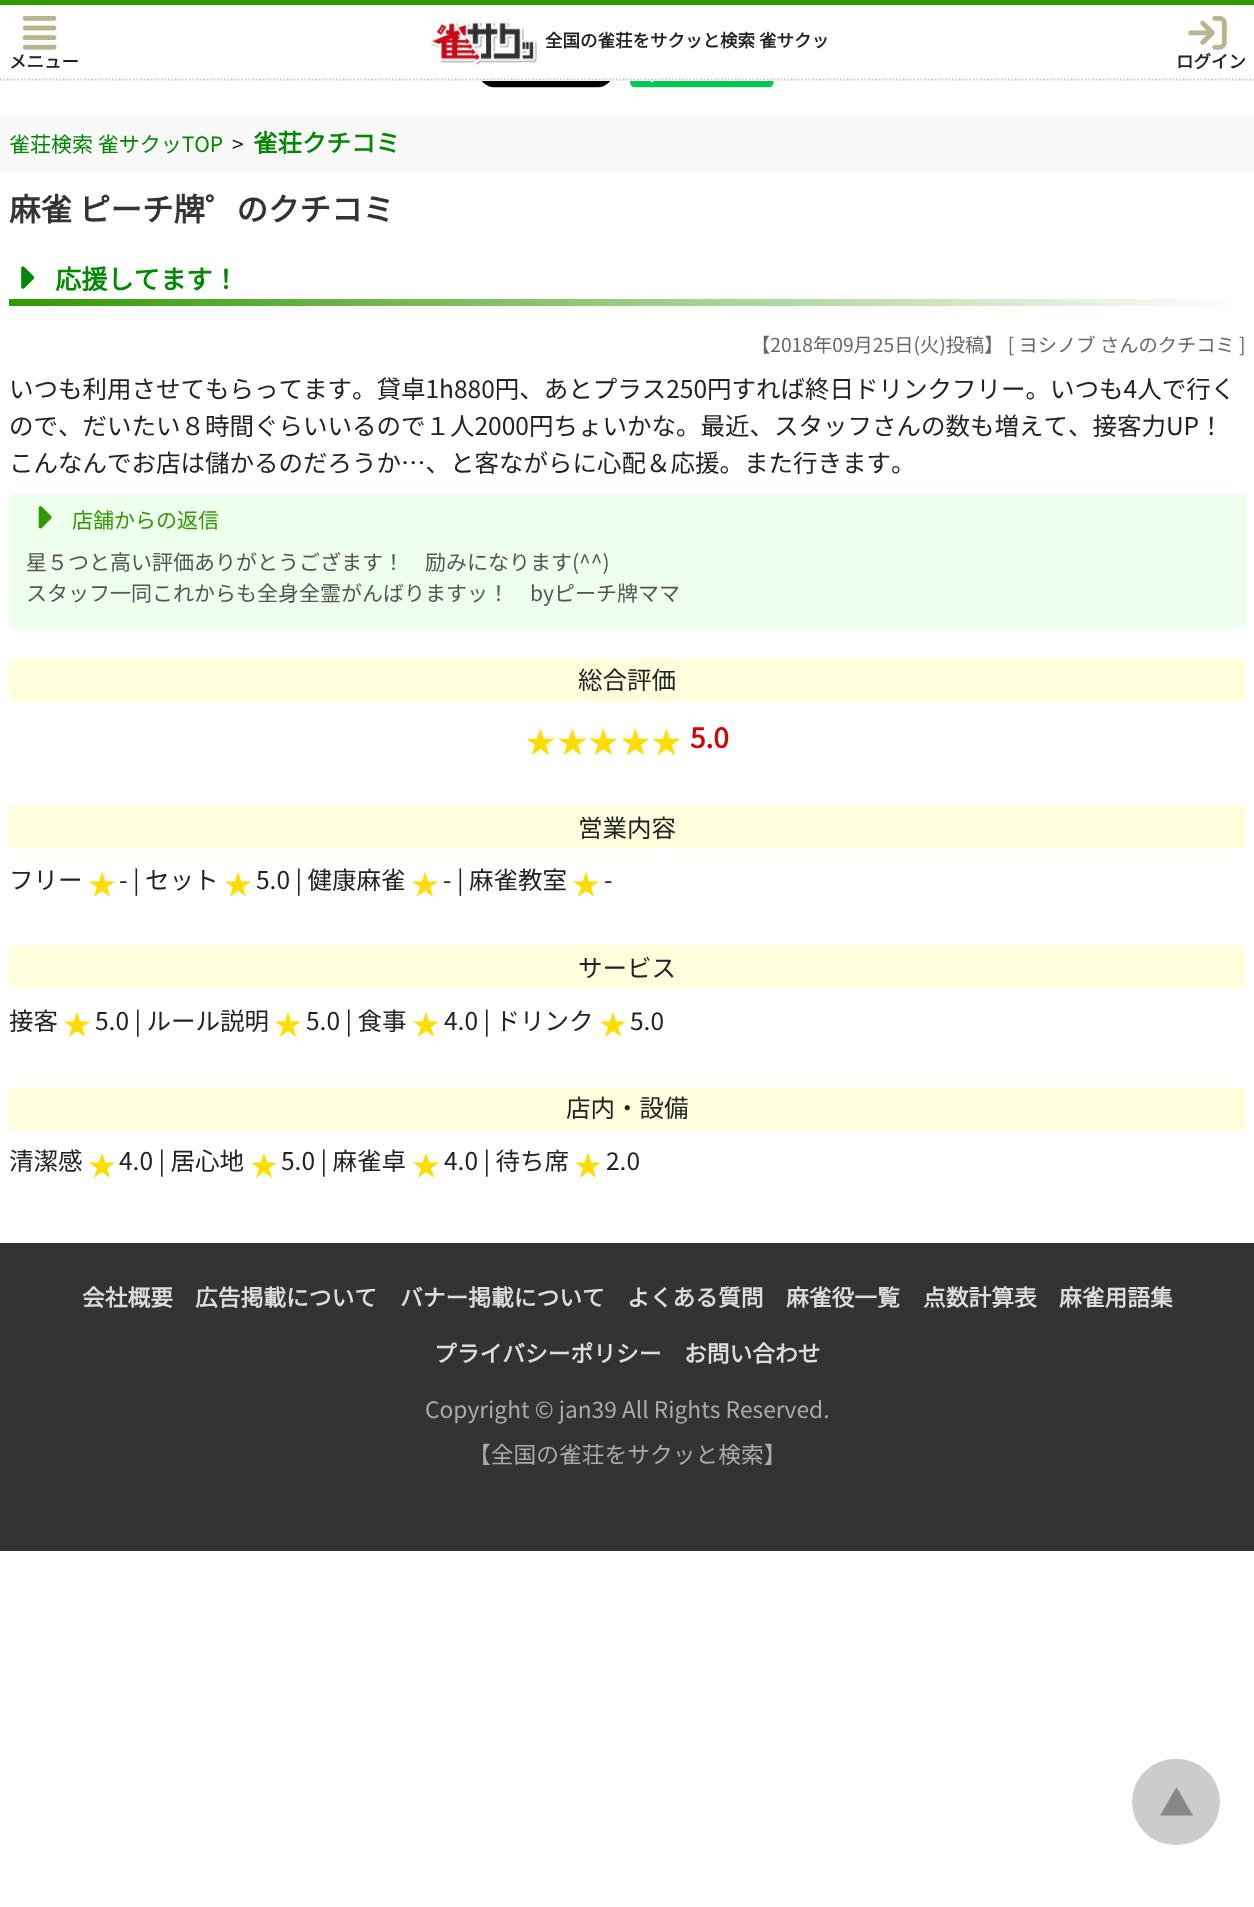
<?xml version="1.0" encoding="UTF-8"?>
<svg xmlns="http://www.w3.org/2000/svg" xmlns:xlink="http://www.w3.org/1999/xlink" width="1254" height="1907">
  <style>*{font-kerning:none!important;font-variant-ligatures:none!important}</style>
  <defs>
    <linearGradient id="g1" gradientUnits="userSpaceOnUse" x1="9" y1="303" x2="1246" y2="303"><stop offset="0" stop-color="#339900" /><stop offset="1" stop-color="#ffffff" /></linearGradient>
  </defs>
  <rect width="100%" height="100%" fill="#ffffff" />
  <rect width="1254" height="5" fill="#339900" />
  <path d="M 0 79.5 h 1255" fill="none" stroke="#cccccc" stroke-width="1.8" stroke-dasharray="1.75 1.75" />
  <image x="430" y="22" width="107" height="43" xlink:href="image1.png" />
  <image x="22" y="16" width="35" height="34" xlink:href="image2.png" />
  <image x="1188" y="16" width="39" height="34" xlink:href="image3.png" />
  <image x="481" y="81" width="130" height="7" xlink:href="image4.png" />
  <image x="630" y="81" width="144" height="7" xlink:href="image5.png" />
  <rect y="114" width="1254" height="58" fill="#f9f9f9" />
  <image x="21" y="266" width="14" height="23" xlink:href="image6.png" />
  <rect x="9" y="299" width="1225" height="7" fill="url(#g1)" />
  <rect x="9" y="494" width="1237" height="134" rx="5" fill="#eeffee" />
  <image x="38" y="506" width="14" height="23" xlink:href="image7.png" />
  <rect x="9" y="658" width="1237" height="44" rx="5" fill="#ffffdd" />
  <rect x="9" y="805" width="1237" height="44" rx="5" fill="#ffffdd" />
  <rect x="9" y="945" width="1237" height="44" rx="5" fill="#ffffdd" />
  <rect x="9" y="1087" width="1237" height="44" rx="5" fill="#ffffdd" />
  <rect y="1243" width="1254" height="308" fill="#333333" />
  <rect x="1132" y="1759" width="88" height="86" rx="43" fill="#cccccc" />
  <text x="545" y="47" style="font-family: Noto Sans JP; font-size: 17.5px; font-weight: bold; fill: #222222">全国の雀荘をサクッと検索 雀サクッ</text>
  <text x="9" y="68" style="font-family: Noto Sans JP; font-size: 17.5px; font-weight: bold; fill: #222222">メニュー</text>
  <text x="1176" y="68" style="font-family: Noto Sans JP; font-size: 17.5px; font-weight: bold; fill: #222222">ログイン</text>
  <text x="9" y="152" style="font-family: Noto Sans JP; font-size: 21px; font-weight: 100; fill: #008800">雀荘検索 雀サクッTOP</text>
  <text x="232" y="152" style="font-family: Noto Sans JP; font-size: 21px; font-weight: 100; fill: #222222">&gt;</text>
  <text x="253" y="152" style="font-family: Noto Sans JP; font-size: 24.5px; font-weight: bold; fill: #008800">雀荘クチコミ</text>
  <text x="9" y="221" style="font-family: Noto Sans JP; font-size: 31.5px; font-weight: bold; fill: #333333">麻雀 ピーチ牌゜のクチコミ</text>
  <text x="55" y="289" style="font-family: Noto Sans JP; font-size: 26.25px; font-weight: bold; fill: #008800">応援してます！</text>
  <text x="751" y="352" style="font-family: Noto Sans JP; font-size: 19.25px; font-weight: 100; fill: #666666">【2018年09月25日(火)投稿】 [ ヨシノブ さんのクチコミ ]</text>
  <text x="9" y="398" style="font-family: Noto Sans JP; font-size: 24.5px; font-weight: 100; fill: #222222">いつも利用させてもらってます</text>
  <text x="352" y="398" style="font-family: Noto Sans JP; font-size: 24.5px; font-weight: 100; fill: #222222">。貸卓1h880円、あとプラス250円すれば終日ドリンクフリー。いつも4人で行く</text>
  <text x="9" y="435" style="font-family: Noto Sans JP; font-size: 24.5px; font-weight: 100; fill: #222222">ので、だいたい８時間ぐらいいるので１人2000円ちょいかな。最近、スタッフさんの数も増えて、接客力UP！</text>
  <text x="9" y="472" style="font-family: Noto Sans JP; font-size: 24.5px; font-weight: 100; fill: #222222">こんなんでお店は儲かるのだろうか…、と客ながらに心配＆応援。また行きます</text>
  <text x="891" y="472" style="font-family: Noto Sans JP; font-size: 24.5px; font-weight: 100; fill: #222222">。</text>
  <text x="72" y="528" style="font-family: Noto Sans JP; font-size: 21px; font-weight: 100; fill: #339900">店舗からの返信</text>
  <text x="26" y="570" style="font-family: Noto Sans JP; font-size: 21px; font-weight: 100; fill: #555555">星５つと高い評価ありがとうござます！　励みになります(^^)</text>
  <text x="26" y="601" style="font-family: Noto Sans JP; font-size: 21px; font-weight: 100; fill: #555555">スタッフ一同これからも全身全霊がんばりますッ！　byピーチ牌ママ</text>
  <text x="578" y="689" style="font-family: Noto Sans JP; font-size: 24.5px; font-weight: 100; fill: #222222">総合評価</text>
  <text x="526" y="753" style="font-family: Noto Sans JP; font-size: 28px; font-weight: bold; fill: #ffdd00">★</text>
  <text x="558" y="753" style="font-family: Noto Sans JP; font-size: 28px; font-weight: bold; fill: #ffdd00">★</text>
  <text x="589" y="753" style="font-family: Noto Sans JP; font-size: 28px; font-weight: bold; fill: #ffdd00">★</text>
  <text x="621" y="753" style="font-family: Noto Sans JP; font-size: 28px; font-weight: bold; fill: #ffdd00">★</text>
  <text x="652" y="753" style="font-family: Noto Sans JP; font-size: 28px; font-weight: bold; fill: #ffdd00">★</text>
  <text x="690" y="748" style="font-family: Noto Sans JP; font-size: 28px; font-weight: bold; fill: #d80000">5.0</text>
  <text x="578" y="837" style="font-family: Noto Sans JP; font-size: 24.5px; font-weight: 100; fill: #222222">営業内容</text>
  <text x="9" y="889" style="font-family: Noto Sans JP; font-size: 24.5px; font-weight: 100; fill: #222222">フリー</text>
  <text x="88" y="895" style="font-family: Noto Sans JP; font-size: 28px; font-weight: 100; fill: #ffdd00">★</text>
  <text x="119" y="889" style="font-family: Noto Sans JP; font-size: 24.5px; font-weight: 100; fill: #222222">- | セット</text>
  <text x="224" y="895" style="font-family: Noto Sans JP; font-size: 28px; font-weight: 100; fill: #ffdd00">★</text>
  <text x="256" y="889" style="font-family: Noto Sans JP; font-size: 24.5px; font-weight: 100; fill: #222222">5.0 | 健康麻雀</text>
  <text x="411" y="895" style="font-family: Noto Sans JP; font-size: 28px; font-weight: 100; fill: #ffdd00">★</text>
  <text x="443" y="889" style="font-family: Noto Sans JP; font-size: 24.5px; font-weight: 100; fill: #222222">- | 麻雀教室</text>
  <text x="572" y="895" style="font-family: Noto Sans JP; font-size: 28px; font-weight: 100; fill: #ffdd00">★</text>
  <text x="604" y="889" style="font-family: Noto Sans JP; font-size: 24.5px; font-weight: 100; fill: #222222">-</text>
  <text x="578" y="977" style="font-family: Noto Sans JP; font-size: 24.5px; font-weight: 100; fill: #222222">サービス</text>
  <text x="9" y="1030" style="font-family: Noto Sans JP; font-size: 24.5px; font-weight: 100; fill: #222222">接客</text>
  <text x="63" y="1035" style="font-family: Noto Sans JP; font-size: 28px; font-weight: 100; fill: #ffdd00">★</text>
  <text x="95" y="1030" style="font-family: Noto Sans JP; font-size: 24.5px; font-weight: 100; fill: #222222">5.0 | ルール説明</text>
  <text x="274" y="1035" style="font-family: Noto Sans JP; font-size: 28px; font-weight: 100; fill: #ffdd00">★</text>
  <text x="306" y="1030" style="font-family: Noto Sans JP; font-size: 24.5px; font-weight: 100; fill: #222222">5.0 | 食事</text>
  <text x="412" y="1035" style="font-family: Noto Sans JP; font-size: 28px; font-weight: 100; fill: #ffdd00">★</text>
  <text x="444" y="1030" style="font-family: Noto Sans JP; font-size: 24.5px; font-weight: 100; fill: #222222">4.0 | ドリンク</text>
  <text x="599" y="1035" style="font-family: Noto Sans JP; font-size: 28px; font-weight: 100; fill: #ffdd00">★</text>
  <text x="630" y="1030" style="font-family: Noto Sans JP; font-size: 24.5px; font-weight: 100; fill: #222222">5.0</text>
  <text x="566" y="1117" style="font-family: Noto Sans JP; font-size: 24.5px; font-weight: 100; fill: #222222">店内・設備</text>
  <text x="9" y="1170" style="font-family: Noto Sans JP; font-size: 24.5px; font-weight: 100; fill: #222222">清潔感</text>
  <text x="88" y="1176" style="font-family: Noto Sans JP; font-size: 28px; font-weight: 100; fill: #ffdd00">★</text>
  <text x="119" y="1170" style="font-family: Noto Sans JP; font-size: 24.5px; font-weight: 100; fill: #222222">4.0 | 居心地</text>
  <text x="250" y="1176" style="font-family: Noto Sans JP; font-size: 28px; font-weight: 100; fill: #ffdd00">★</text>
  <text x="281" y="1170" style="font-family: Noto Sans JP; font-size: 24.5px; font-weight: 100; fill: #222222">5.0 | 麻雀卓</text>
  <text x="412" y="1176" style="font-family: Noto Sans JP; font-size: 28px; font-weight: 100; fill: #ffdd00">★</text>
  <text x="444" y="1170" style="font-family: Noto Sans JP; font-size: 24.5px; font-weight: 100; fill: #222222">4.0 | 待ち席</text>
  <text x="574" y="1176" style="font-family: Noto Sans JP; font-size: 28px; font-weight: 100; fill: #ffdd00">★</text>
  <text x="606" y="1170" style="font-family: Noto Sans JP; font-size: 24.5px; font-weight: 100; fill: #222222">2.0</text>
  <text x="82" y="1306" style="font-family: Noto Sans JP; font-size: 22.75px; font-weight: bold; fill: #dddddd">会社概要</text>
  <text x="195" y="1306" style="font-family: Noto Sans JP; font-size: 22.75px; font-weight: bold; fill: #dddddd">広告掲載について</text>
  <text x="400" y="1306" style="font-family: Noto Sans JP; font-size: 22.75px; font-weight: bold; fill: #dddddd">バナー掲載について</text>
  <text x="627" y="1306" style="font-family: Noto Sans JP; font-size: 22.75px; font-weight: bold; fill: #dddddd">よくある質問</text>
  <text x="786" y="1306" style="font-family: Noto Sans JP; font-size: 22.75px; font-weight: bold; fill: #dddddd">麻雀役一覧</text>
  <text x="923" y="1306" style="font-family: Noto Sans JP; font-size: 22.75px; font-weight: bold; fill: #dddddd">点数計算表</text>
  <text x="1059" y="1306" style="font-family: Noto Sans JP; font-size: 22.75px; font-weight: bold; fill: #dddddd">麻雀用語集</text>
  <text x="434" y="1362" style="font-family: Noto Sans JP; font-size: 22.75px; font-weight: bold; fill: #dddddd">プライバシーポリシー</text>
  <text x="684" y="1362" style="font-family: Noto Sans JP; font-size: 22.75px; font-weight: bold; fill: #dddddd">お問い合わせ</text>
  <text x="425" y="1418" style="font-family: Noto Sans JP; font-size: 22.75px; font-weight: 100; fill: #aaaaaa">Copyright © jan39 All Rights Reserved.</text>
  <text x="468" y="1463" style="font-family: Noto Sans JP; font-size: 22.75px; font-weight: 100; fill: #aaaaaa">【全国の雀荘をサクッと検索】</text>
  <text x="1159" y="1816" style="font-family: Noto Sans JP; font-size: 35px; font-weight: 100; fill: #888888">▲</text>
</svg>
